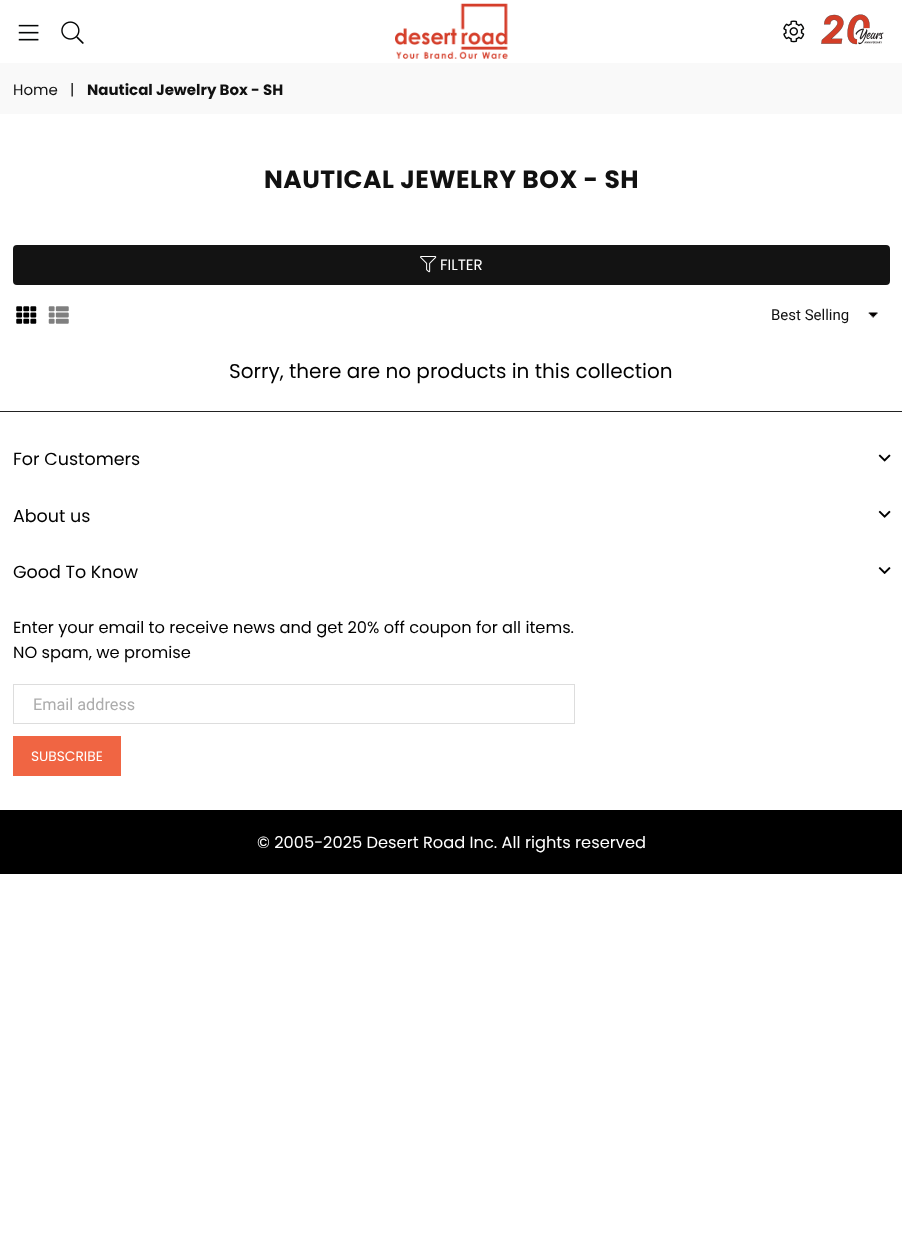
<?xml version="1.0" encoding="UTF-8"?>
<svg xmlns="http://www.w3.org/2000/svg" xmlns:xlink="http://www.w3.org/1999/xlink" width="902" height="1234">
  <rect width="100%" height="100%" fill="#ffffff" />
  <image x="18" y="24" width="21" height="17" xlink:href="image1.png" />
  <image x="61" y="21" width="23" height="23" xlink:href="image2.png" />
  <image x="395" y="3" width="113" height="56" xlink:href="image3.png" />
  <image x="783" y="20" width="22" height="23" xlink:href="image4.png" />
  <image x="821" y="14" width="63" height="31" xlink:href="image5.png" />
  <rect y="63" width="902" height="51" fill="#f9f9f9" />
  <rect x="14.5" y="246.5" width="874" height="37" rx="2.5" fill="#131313" stroke="#131313" stroke-width="3" />
  <image x="420" y="256" width="17" height="17" xlink:href="image6.png" />
  <image x="16" y="306" width="21" height="18" xlink:href="image7.png" />
  <image x="48" y="306" width="21" height="18" xlink:href="image8.png" />
  <image x="868" y="312" width="10" height="6" xlink:href="image9.png" />
  <rect y="411" width="902" height="1" fill="#222222" />
  <image x="878" y="454" width="13" height="8" xlink:href="image10.png" />
  <image x="878" y="510" width="13" height="8" xlink:href="image11.png" />
  <image x="878" y="567" width="13" height="7" xlink:href="image12.png" />
  <rect x="13.5" y="684.5" width="561" height="39" fill="none" stroke="#dddddd" />
  <rect x="13" y="736" width="108" height="40" fill="#f06543" />
  <rect y="810" width="902" height="64" fill="#000000" />
  <path d="M 0 810.5 h 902.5" fill="none" stroke="#000000" stroke-width="1.2" stroke-dasharray="1.25 1.25" />
  <text x="13" y="95" style="font-family: Poppins; font-size: 15px; fill: #111111">Home</text>
  <text x="70" y="95" style="font-family: Poppins; font-size: 15px; fill: #111111">|</text>
  <text x="87" y="95" style="font-family: Poppins; font-size: 15px; font-weight: bold; fill: #111111">Nautical Jewelry Box - SH</text>
  <text x="264" y="188" style="font-family: Poppins; font-size: 25px; font-weight: bold; letter-spacing: 0.5px; fill: #111111">NAUTICAL JEWELRY BOX - SH</text>
  <text x="440" y="270" style="font-family: Poppins; font-size: 15px; fill: #ffffff">FILTER</text>
  <text x="771" y="320" style="font-family: Roboto; font-size: 15px; fill: #111111">Best Selling</text>
  <text x="229" y="378" style="font-family: Poppins; font-size: 20px; fill: #000000">Sorry, there are no products in this collection</text>
  <text x="13" y="465" style="font-family: Poppins; font-size: 17.5px; fill: #000000">For Customers</text>
  <text x="13" y="522" style="font-family: Poppins; font-size: 17.5px; fill: #000000">About us</text>
  <text x="13" y="578" style="font-family: Poppins; font-size: 17.5px; fill: #000000">Good To Know</text>
  <text x="13" y="633" style="font-family: Poppins; font-size: 16.25px; fill: #000000">Enter your email to receive news and get 20% off coupon for all items.</text>
  <text x="13" y="658" style="font-family: Poppins; font-size: 16.25px; fill: #000000">NO spam, we promise</text>
  <text x="33" y="710" style="font-family: Roboto; font-size: 16.25px; fill: #acacac">Email address</text>
  <text x="31" y="761" style="font-family: Poppins; font-size: 13.75px; fill: #ffffff">SUBSCRIBE</text>
  <text x="257" y="848" style="font-family: Poppins; font-size: 16.25px; fill: #ffffff">© 2005-2025 Desert Road Inc. All rights reserved</text>
</svg>
